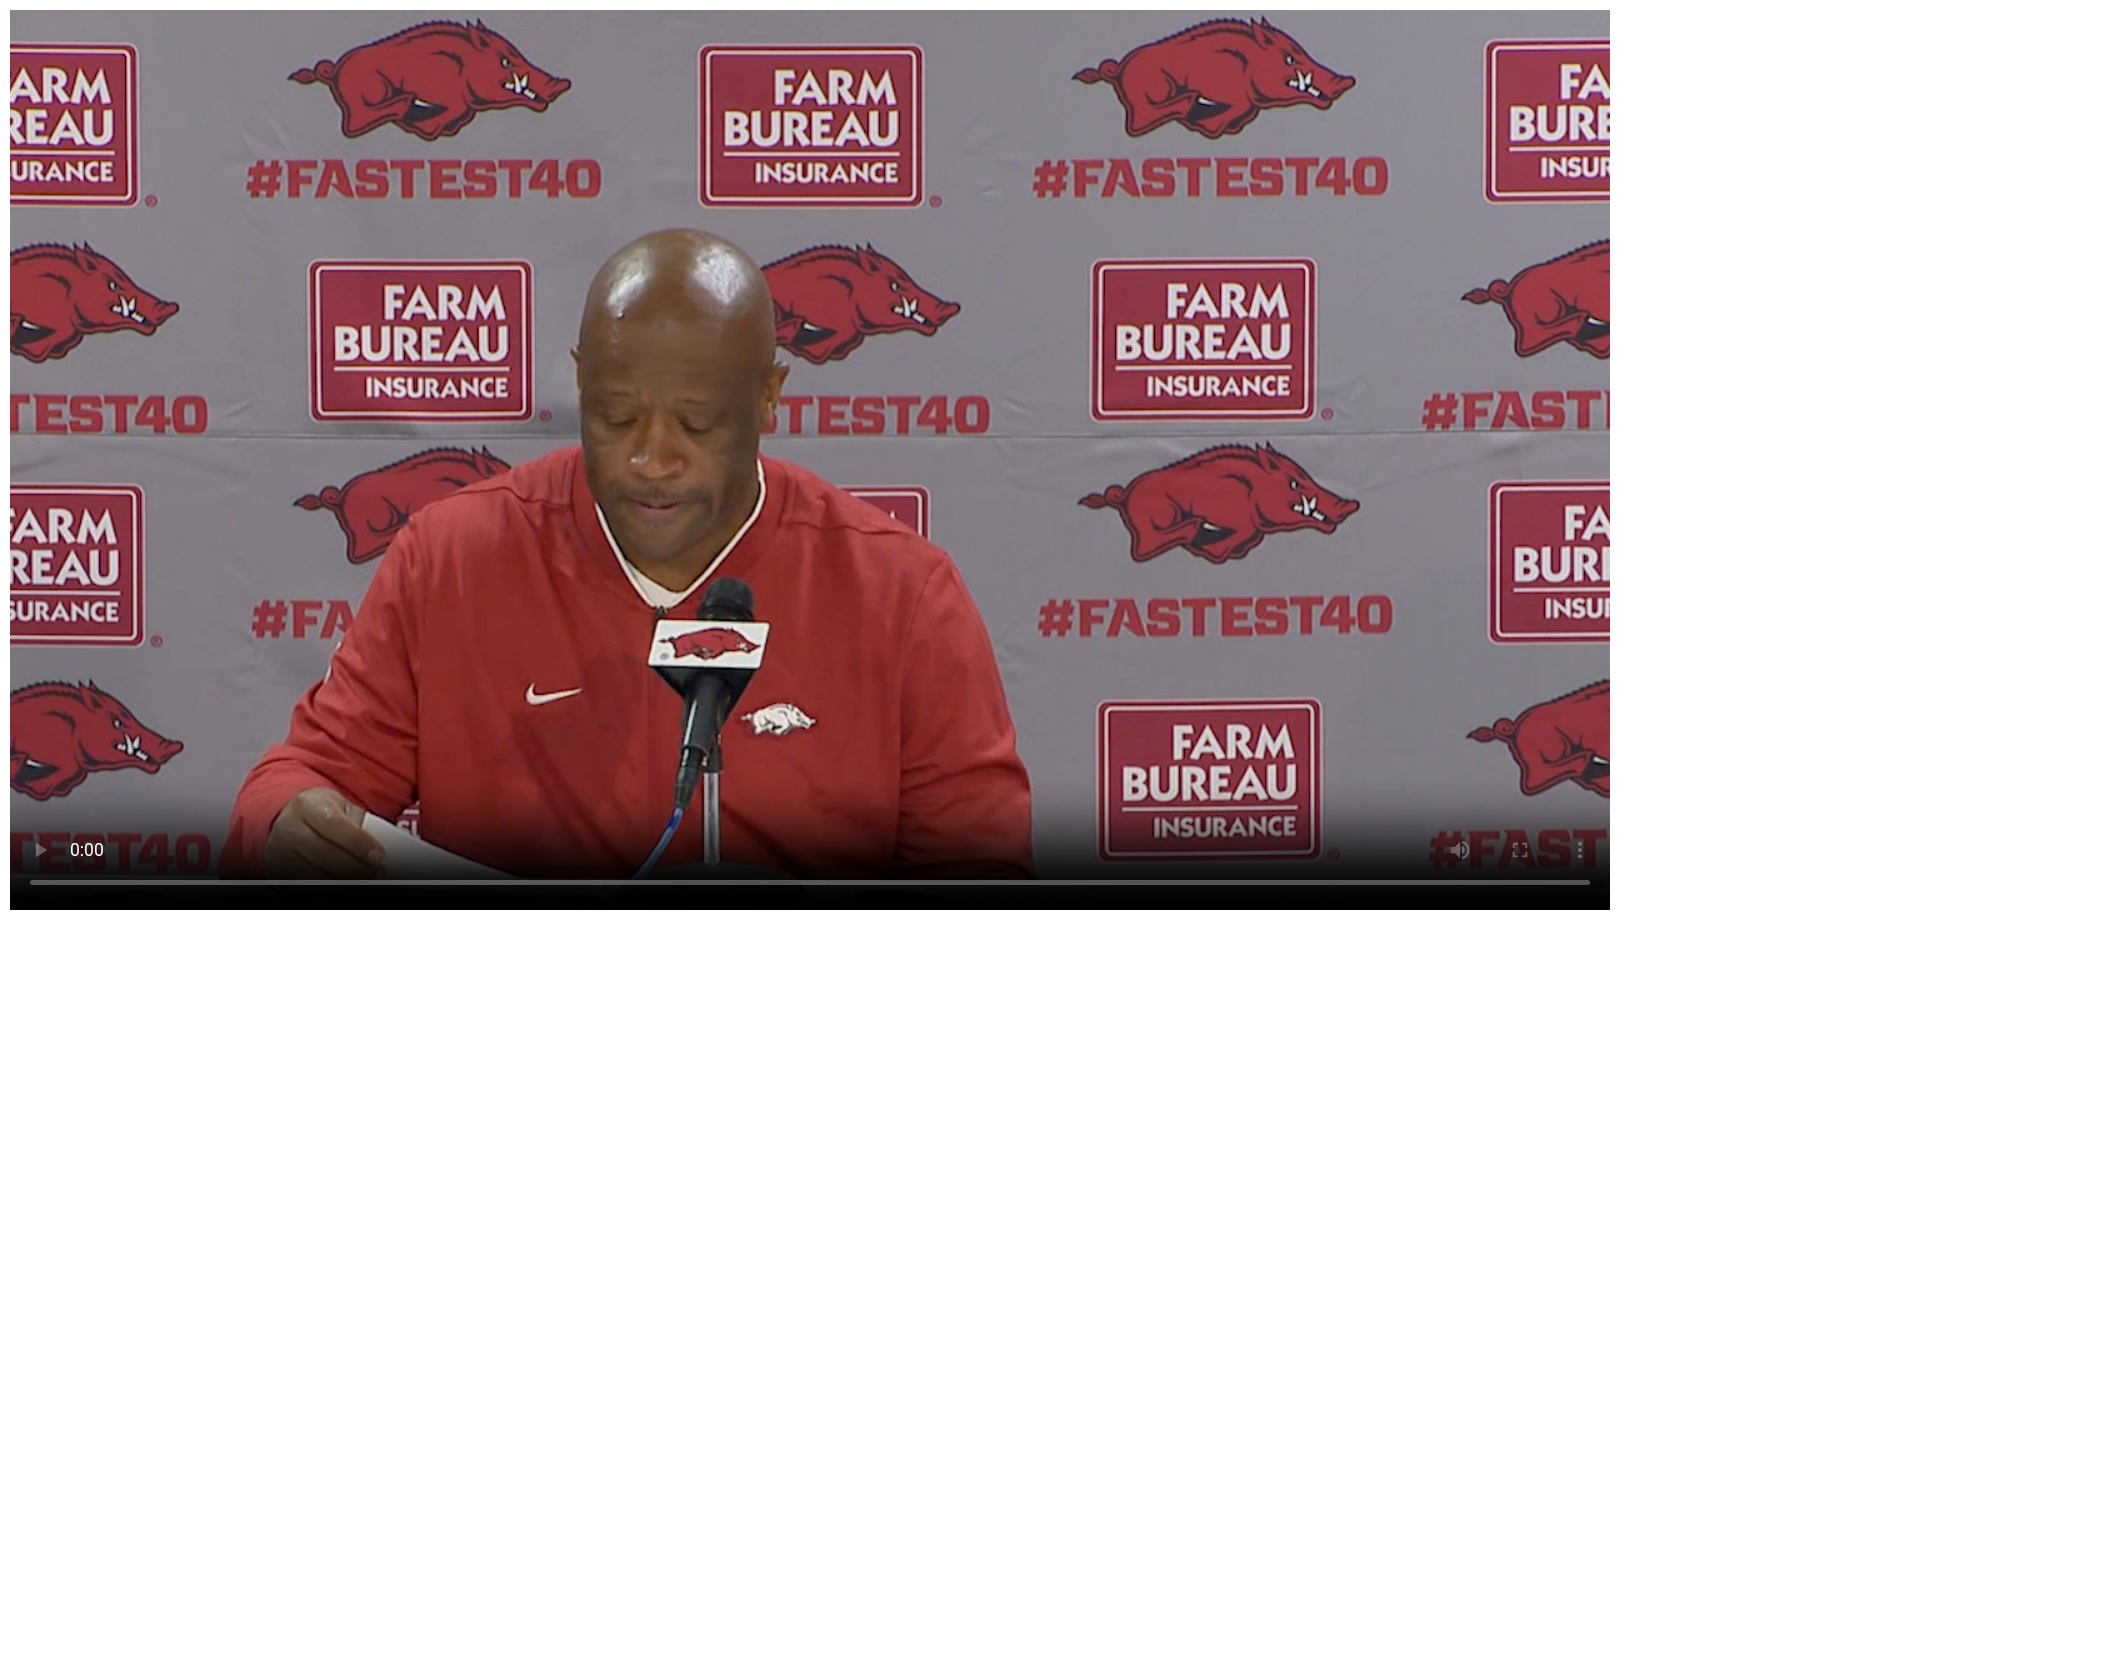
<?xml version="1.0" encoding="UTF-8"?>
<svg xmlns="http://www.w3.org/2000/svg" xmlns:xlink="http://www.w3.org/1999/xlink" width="2104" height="1653">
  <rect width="100%" height="100%" fill="#ffffff" />
  <image x="10" y="10" width="1600" height="900" xlink:href="image1.png" />
</svg>
